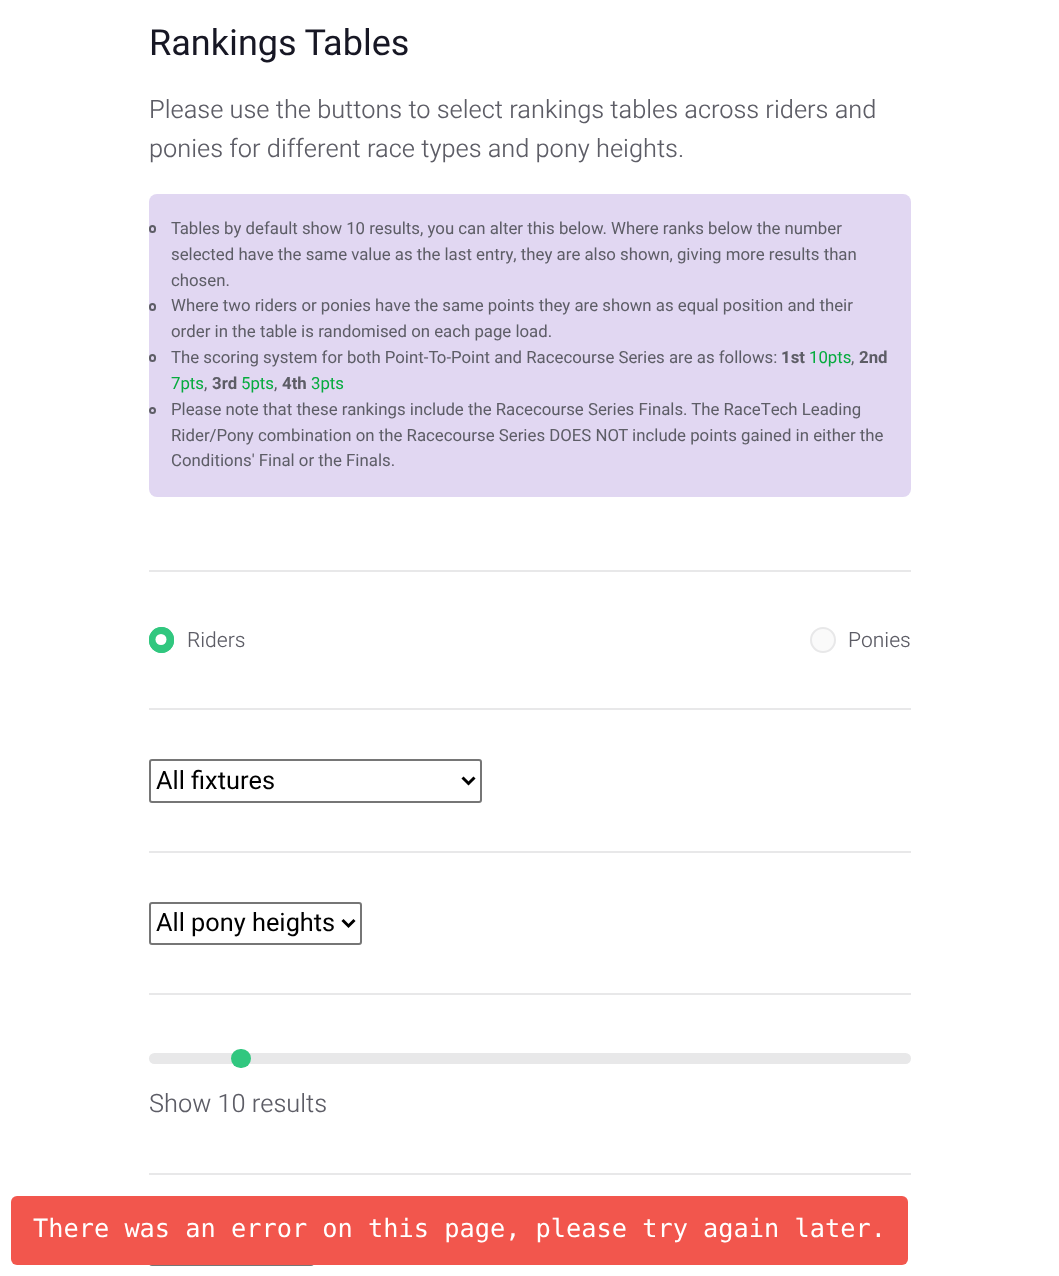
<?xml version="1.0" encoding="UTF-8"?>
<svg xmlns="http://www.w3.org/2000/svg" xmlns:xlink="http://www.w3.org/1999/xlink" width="1059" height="1276">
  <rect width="100%" height="100%" fill="#ffffff" />
  <rect x="149" y="194" width="762" height="303" rx="8" fill="#e1d7f2" />
  <rect x="150" y="226" width="5" height="6" rx="2.5" fill="none" stroke="#5d5d66" stroke-width="2" />
  <rect x="150" y="304" width="5" height="6" rx="2.5" fill="none" stroke="#5d5d66" stroke-width="2" />
  <rect x="150" y="355" width="5" height="6" rx="2.5" fill="none" stroke="#5d5d66" stroke-width="2" />
  <circle cx="152.5" cy="410.5" r="2.5" fill="none" stroke="#5d5d66" stroke-width="2" />
  <rect x="149" y="570" width="762" height="2" fill="#e8e8e9" />
  <rect x="149" y="627" width="25" height="26" rx="12.5" fill="#31c77f" />
  <circle cx="161" cy="639.5" r="5.5" fill="#ffffff" />
  <rect x="150" y="628" width="23" height="24" rx="11.5" fill="none" stroke="#31c77f" stroke-width="2" />
  <circle cx="823" cy="640" r="12" fill="#fafafa" stroke="#e8e8e9" stroke-width="2" />
  <rect x="149" y="708" width="762" height="2" fill="#e8e8e9" />
  <rect x="150" y="760" width="331" height="42" rx="2" fill="none" stroke="#767676" stroke-width="2" />
  <path d="M 462.5 777.5 l 6 6 l 6 -6" fill="none" stroke="#000000" stroke-width="3" />
  <rect x="149" y="851" width="762" height="2" fill="#e8e8e9" />
  <rect x="150" y="903" width="211" height="41" rx="2" fill="none" stroke="#767676" stroke-width="2" />
  <path d="M 342.5 920 l 6 6 l 6 -6" fill="none" stroke="#000000" stroke-width="3" />
  <rect x="149" y="993" width="762" height="2" fill="#e8e8e9" />
  <rect x="149" y="1053" width="762" height="11" rx="5.5" fill="#e8e8e9" />
  <rect x="231" y="1049" width="20" height="19" rx="9.5" fill="#31c77f" />
  <rect x="149" y="1173" width="762" height="2" fill="#e8e8e9" />
  <rect x="150" y="1224" width="163" height="41" rx="2" fill="none" stroke="#767676" stroke-width="2" />
  <rect x="11" y="1196" width="897" height="69" rx="6" fill="#f2564d" />
  <text x="149" y="55" style="font-family: Heebo; font-size: 36px; fill: #171724">Rankings Tables</text>
  <text x="149" y="118" style="font-family: Heebo; font-size: 25.3px; font-weight: 300; fill: #5d5d66">Please use the buttons to select rankings tables across riders and</text>
  <text x="149" y="157" style="font-family: Heebo; font-size: 25.3px; font-weight: 300; fill: #5d5d66">ponies for different race types and pony heights.</text>
  <text x="171" y="234" style="font-family: Heebo; font-size: 16.8px; fill: #5d5d66">Tables by default show 10 results, you can alter this below. Where ranks below the number</text>
  <text x="171" y="260" style="font-family: Heebo; font-size: 16.8px; fill: #5d5d66">selected have the same value as the last entry, they are also shown, giving more results than</text>
  <text x="171" y="286" style="font-family: Heebo; font-size: 16.8px; fill: #5d5d66">chosen.</text>
  <text x="171" y="311" style="font-family: Heebo; font-size: 16.8px; fill: #5d5d66">Where two riders or ponies have the same points they are shown as equal position and their</text>
  <text x="171" y="337" style="font-family: Heebo; font-size: 16.8px; fill: #5d5d66">order in the table is randomised on each page load.</text>
  <text x="171" y="363" style="font-family: Heebo; font-size: 16.8px; fill: #5d5d66">The scoring system for both Point-To-Point and Racecourse Series are as follows:</text>
  <text x="781" y="363" style="font-family: Heebo; font-size: 16.8px; font-weight: bold; fill: #5d5d66">1st</text>
  <text x="809" y="363" style="font-family: Heebo; font-size: 16.8px; fill: #05ab3d">10pts</text>
  <text x="859" y="363" style="font-family: Heebo; font-size: 16.8px; font-weight: bold; fill: #5d5d66">2nd</text>
  <text x="851" y="363" style="font-family: Heebo; font-size: 16.8px; fill: #5d5d66">,</text>
  <text x="171" y="389" style="font-family: Heebo; font-size: 16.8px; fill: #05ab3d">7pts</text>
  <text x="204" y="389" style="font-family: Heebo; font-size: 16.8px; fill: #5d5d66">,</text>
  <text x="212" y="389" style="font-family: Heebo; font-size: 16.8px; font-weight: bold; fill: #5d5d66">3rd</text>
  <text x="241" y="389" style="font-family: Heebo; font-size: 16.8px; fill: #05ab3d">5pts</text>
  <text x="274" y="389" style="font-family: Heebo; font-size: 16.8px; fill: #5d5d66">,</text>
  <text x="282" y="389" style="font-family: Heebo; font-size: 16.8px; font-weight: bold; fill: #5d5d66">4th</text>
  <text x="311" y="389" style="font-family: Heebo; font-size: 16.8px; fill: #05ab3d">3pts</text>
  <text x="171" y="415" style="font-family: Heebo; font-size: 16.8px; fill: #5d5d66">Please note that these rankings include the Racecourse Series Finals. The RaceTech Leading</text>
  <text x="171" y="441" style="font-family: Heebo; font-size: 16.8px; fill: #5d5d66">Rider/Pony combination on the Racecourse Series DOES NOT include points gained in either the</text>
  <text x="171" y="466" style="font-family: Heebo; font-size: 16.8px; fill: #5d5d66">Conditions' Final or the Finals.</text>
  <text x="187" y="647" style="font-family: Heebo; font-size: 21px; font-weight: 300; fill: #5d5d66">Riders</text>
  <text x="848" y="647" style="font-family: Heebo; font-size: 21px; font-weight: 300; fill: #5d5d66">Ponies</text>
  <text x="156" y="789" style="font-family: Heebo; font-size: 25.3px; fill: #000000">All fixtures</text>
  <text x="156" y="931" style="font-family: Heebo; font-size: 25.3px; fill: #000000">All pony heights</text>
  <text x="149" y="1112" style="font-family: Heebo; font-size: 25.3px; font-weight: 300; fill: #5d5d66">Show 10 results</text>
  <text x="33" y="1237" style="font-family: DejaVu Sans Mono; font-size: 25.3px; fill: #ffffff">There was an error on this page, please try again later.</text>
</svg>
